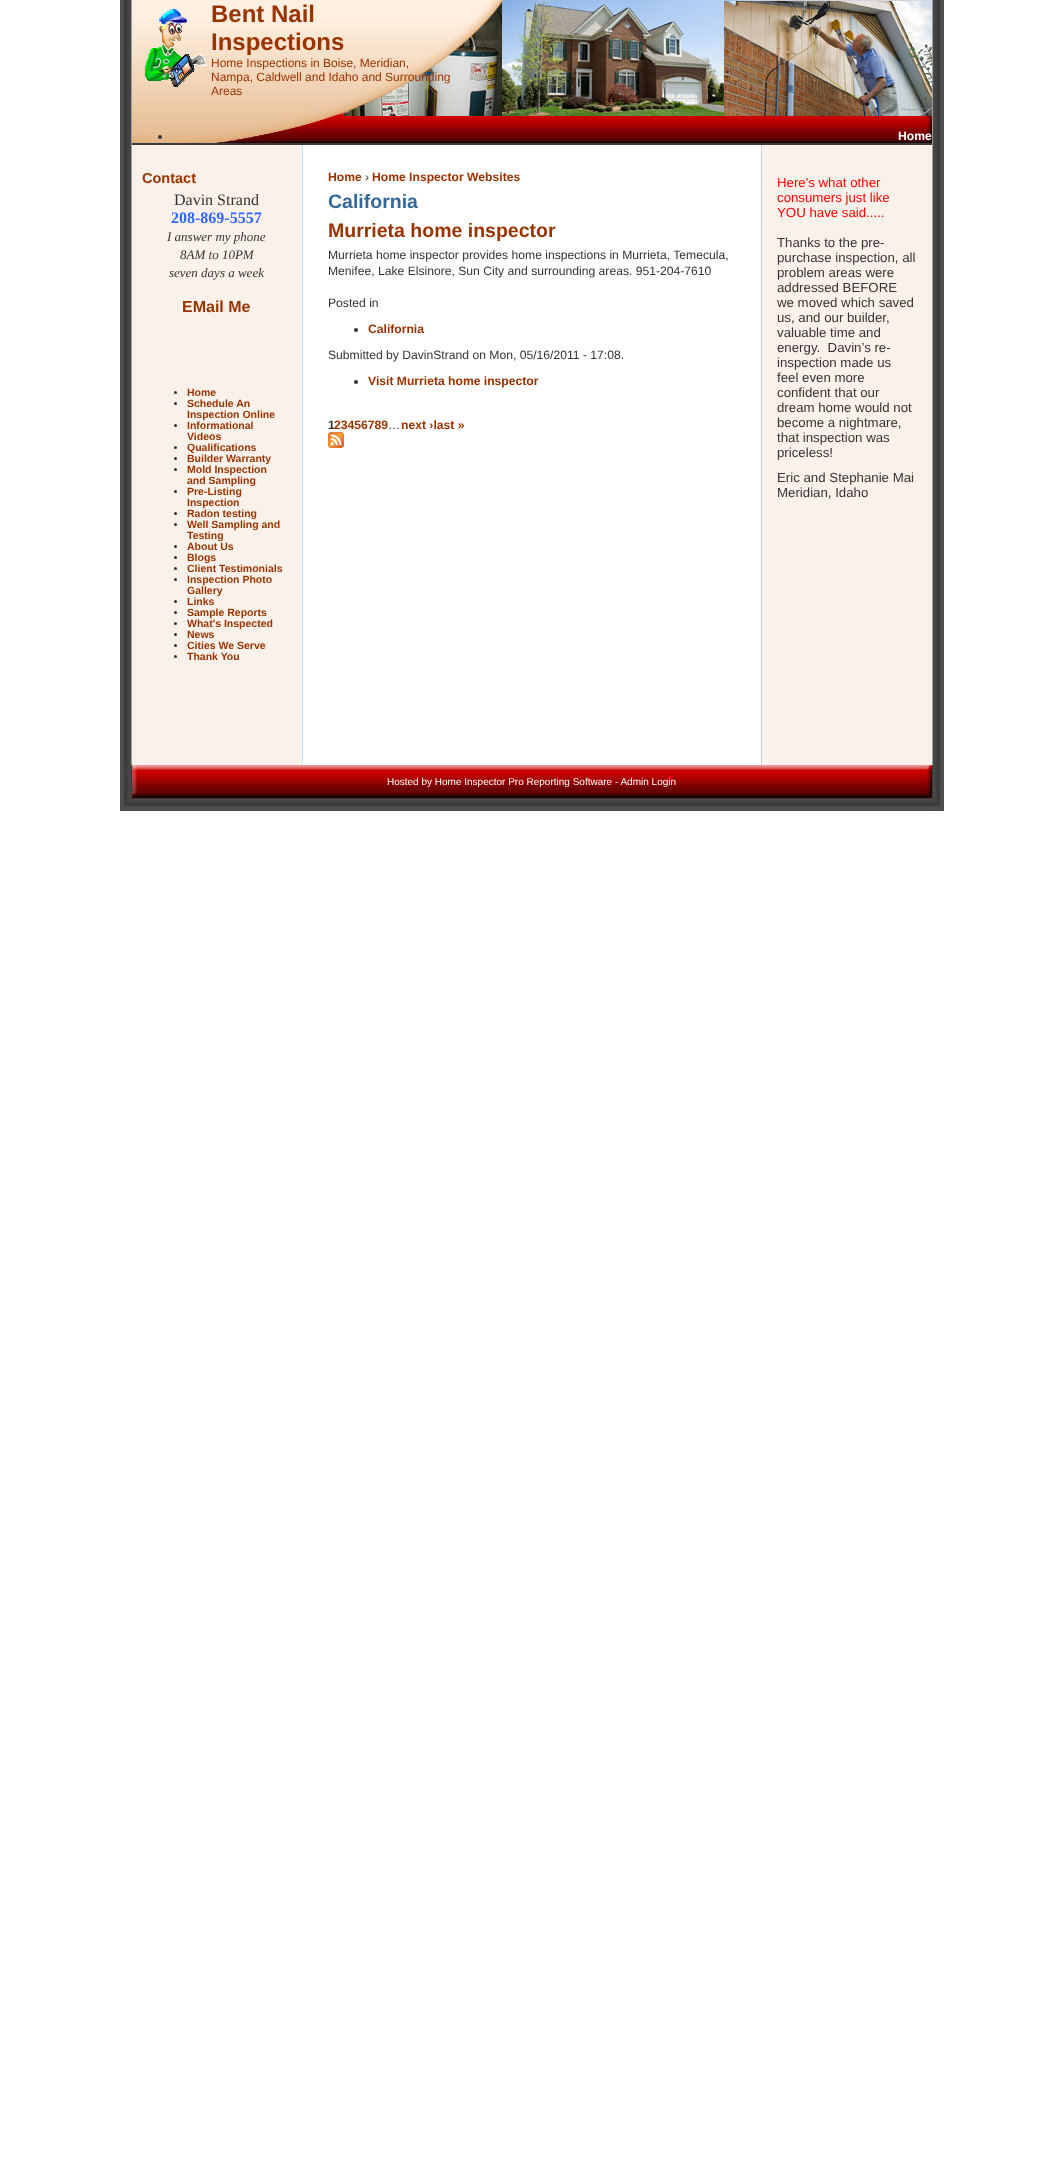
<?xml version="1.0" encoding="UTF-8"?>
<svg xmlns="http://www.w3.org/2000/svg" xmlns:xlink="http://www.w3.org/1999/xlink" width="1063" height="2179">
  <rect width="100%" height="100%" fill="#ffffff" />
  <image x="120" y="0" width="824" height="765" xlink:href="image1.png" />
  <image x="132" y="0" width="800" height="143" xlink:href="image2.png" />
  <image x="145" y="8" width="62" height="79" xlink:href="image3.png" />
  <circle cx="160" cy="137" r="2" fill="#333333" />
  <rect x="132" y="143" width="800" height="2" fill="#3b3b3d" />
  <rect x="132" y="145" width="170" height="620" fill="#faf2ea" />
  <rect x="302" y="145" width="1" height="620" fill="#b8e7ff" />
  <circle cx="175.5" cy="392.5" r="1.5" fill="#333333" />
  <circle cx="175.5" cy="403.5" r="1.5" fill="#333333" />
  <circle cx="175.5" cy="425.5" r="1.5" fill="#333333" />
  <circle cx="175.5" cy="447.5" r="1.5" fill="#333333" />
  <circle cx="175.5" cy="458.5" r="1.5" fill="#333333" />
  <circle cx="175.5" cy="469.5" r="1.5" fill="#333333" />
  <circle cx="175.5" cy="491.5" r="1.5" fill="#333333" />
  <circle cx="175.5" cy="513.5" r="1.5" fill="#333333" />
  <circle cx="175.5" cy="524.5" r="1.5" fill="#333333" />
  <circle cx="175.5" cy="546.5" r="1.5" fill="#333333" />
  <circle cx="175.5" cy="557.5" r="1.5" fill="#333333" />
  <circle cx="175.5" cy="568.5" r="1.5" fill="#333333" />
  <circle cx="175.5" cy="579.5" r="1.5" fill="#333333" />
  <circle cx="175.5" cy="601.5" r="1.5" fill="#333333" />
  <circle cx="175.5" cy="612.5" r="1.5" fill="#333333" />
  <circle cx="175.5" cy="623.5" r="1.5" fill="#333333" />
  <circle cx="175.5" cy="634.5" r="1.5" fill="#333333" />
  <circle cx="175.5" cy="645.5" r="1.5" fill="#333333" />
  <circle cx="175.5" cy="656.5" r="1.5" fill="#333333" />
  <circle cx="356" cy="330" r="2" fill="#333333" />
  <circle cx="356" cy="382" r="2" fill="#333333" />
  <image x="328" y="432" width="16" height="16" xlink:href="image4.png" />
  <rect x="762" y="145" width="170" height="620" fill="#faf2ea" />
  <rect x="761" y="145" width="1" height="620" fill="#cccccc" />
  <image x="120" y="765" width="824" height="46" xlink:href="image5.png" />
  <text x="211" y="22" style="font-family: Liberation Sans; font-size: 24px; font-weight: bold; fill: #993300">Bent Nail</text>
  <text x="211" y="50" style="font-family: Liberation Sans; font-size: 24px; font-weight: bold; fill: #993300">Inspections</text>
  <text x="211" y="67" style="font-family: Liberation Sans; font-size: 12px; fill: #993300">Home Inspections in Boise, Meridian,</text>
  <text x="211" y="81" style="font-family: Liberation Sans; font-size: 12px; fill: #993300">Nampa, Caldwell and Idaho and Surrounding</text>
  <text x="211" y="95" style="font-family: Liberation Sans; font-size: 12px; fill: #993300">Areas</text>
  <text x="898" y="140" style="font-family: Liberation Sans; font-size: 12.15px; font-weight: bold; fill: #ffffff">Home</text>
  <text x="142" y="183" style="font-family: Liberation Sans; font-size: 14.5px; font-weight: bold; fill: #993300">Contact</text>
  <text x="174" y="205" style="font-family: Liberation Serif; font-size: 16px; fill: #333333">Davin Strand</text>
  <text x="171" y="223" style="font-family: Liberation Serif; font-size: 16px; font-weight: bold; fill: #3366ff">208-869-5557</text>
  <text x="167" y="241" style="font-family: Liberation Serif; font-size: 13px; font-style: italic; fill: #333333">I answer my phone</text>
  <text x="180" y="259" style="font-family: Liberation Serif; font-size: 13px; font-style: italic; fill: #333333">8AM to 10PM</text>
  <text x="169" y="277" style="font-family: Liberation Serif; font-size: 13px; font-style: italic; fill: #333333">seven days a week</text>
  <text x="182" y="312" style="font-family: Liberation Sans; font-size: 16px; font-weight: bold; fill: #993300">EMail Me</text>
  <text x="187" y="396" style="font-family: Liberation Sans; font-size: 10.5px; font-weight: bold; fill: #993300">Home</text>
  <text x="187" y="407" style="font-family: Liberation Sans; font-size: 10.5px; font-weight: bold; fill: #993300">Schedule An</text>
  <text x="187" y="418" style="font-family: Liberation Sans; font-size: 10.5px; font-weight: bold; fill: #993300">Inspection Online</text>
  <text x="187" y="429" style="font-family: Liberation Sans; font-size: 10.5px; font-weight: bold; fill: #993300">Informational</text>
  <text x="187" y="440" style="font-family: Liberation Sans; font-size: 10.5px; font-weight: bold; fill: #993300">Videos</text>
  <text x="187" y="451" style="font-family: Liberation Sans; font-size: 10.5px; font-weight: bold; fill: #993300">Qualifications</text>
  <text x="187" y="462" style="font-family: Liberation Sans; font-size: 10.5px; font-weight: bold; fill: #993300">Builder Warranty</text>
  <text x="187" y="473" style="font-family: Liberation Sans; font-size: 10.5px; font-weight: bold; fill: #993300">Mold Inspection</text>
  <text x="187" y="484" style="font-family: Liberation Sans; font-size: 10.5px; font-weight: bold; fill: #993300">and Sampling</text>
  <text x="187" y="495" style="font-family: Liberation Sans; font-size: 10.5px; font-weight: bold; fill: #993300">Pre-Listing</text>
  <text x="187" y="506" style="font-family: Liberation Sans; font-size: 10.5px; font-weight: bold; fill: #993300">Inspection</text>
  <text x="187" y="517" style="font-family: Liberation Sans; font-size: 10.5px; font-weight: bold; fill: #993300">Radon testing</text>
  <text x="187" y="528" style="font-family: Liberation Sans; font-size: 10.5px; font-weight: bold; fill: #993300">Well Sampling and</text>
  <text x="187" y="539" style="font-family: Liberation Sans; font-size: 10.5px; font-weight: bold; fill: #993300">Testing</text>
  <text x="187" y="550" style="font-family: Liberation Sans; font-size: 10.5px; font-weight: bold; fill: #993300">About Us</text>
  <text x="187" y="561" style="font-family: Liberation Sans; font-size: 10.5px; font-weight: bold; fill: #993300">Blogs</text>
  <text x="187" y="572" style="font-family: Liberation Sans; font-size: 10.5px; font-weight: bold; fill: #993300">Client Testimonials</text>
  <text x="187" y="583" style="font-family: Liberation Sans; font-size: 10.5px; font-weight: bold; fill: #993300">Inspection Photo</text>
  <text x="187" y="594" style="font-family: Liberation Sans; font-size: 10.5px; font-weight: bold; fill: #993300">Gallery</text>
  <text x="187" y="605" style="font-family: Liberation Sans; font-size: 10.5px; font-weight: bold; fill: #993300">Links</text>
  <text x="187" y="616" style="font-family: Liberation Sans; font-size: 10.5px; font-weight: bold; fill: #993300">Sample Reports</text>
  <text x="187" y="627" style="font-family: Liberation Sans; font-size: 10.5px; font-weight: bold; fill: #993300">What's Inspected</text>
  <text x="187" y="638" style="font-family: Liberation Sans; font-size: 10.5px; font-weight: bold; fill: #993300">News</text>
  <text x="187" y="649" style="font-family: Liberation Sans; font-size: 10.5px; font-weight: bold; fill: #993300">Cities We Serve</text>
  <text x="187" y="660" style="font-family: Liberation Sans; font-size: 10.5px; font-weight: bold; fill: #993300">Thank You</text>
  <text x="328" y="181" style="font-family: Liberation Sans; font-size: 12.15px; font-weight: bold; fill: #993300">Home</text>
  <text x="365" y="181" style="font-family: Liberation Sans; font-size: 12.15px; fill: #333333">›</text>
  <text x="372" y="181" style="font-family: Liberation Sans; font-size: 12.15px; font-weight: bold; fill: #993300">Home Inspector Websites</text>
  <text x="328" y="208" style="font-family: Liberation Sans; font-size: 19.5px; font-weight: bold; fill: #336699">California</text>
  <text x="328" y="237" style="font-family: Liberation Sans; font-size: 19.5px; font-weight: bold; fill: #993300">Murrieta home inspector</text>
  <text x="328" y="259" style="font-family: Liberation Sans; font-size: 12.15px; fill: #333333">Murrieta home inspector provides home inspections in Murrieta, Temecula,</text>
  <text x="328" y="275" style="font-family: Liberation Sans; font-size: 12.15px; fill: #333333">Menifee, Lake Elsinore, Sun City and surrounding areas. 951-204-7610</text>
  <text x="328" y="307" style="font-family: Liberation Sans; font-size: 12.15px; fill: #333333">Posted in</text>
  <text x="368" y="333" style="font-family: Liberation Sans; font-size: 12.15px; font-weight: bold; fill: #993300">California</text>
  <text x="328" y="359" style="font-family: Liberation Sans; font-size: 12.15px; fill: #333333">Submitted by DavinStrand on Mon, 05/16/2011 - 17:08.</text>
  <text x="368" y="385" style="font-family: Liberation Sans; font-size: 12.15px; font-weight: bold; fill: #993300">Visit Murrieta home inspector</text>
  <text x="328" y="429" style="font-family: Liberation Sans; font-size: 12.15px; font-weight: bold; fill: #333333">1</text>
  <text x="334" y="429" style="font-family: Liberation Sans; font-size: 12.15px; font-weight: bold; fill: #993300">23456789</text>
  <text x="388" y="429" style="font-family: Liberation Sans; font-size: 12.15px; fill: #333333">…</text>
  <text x="401" y="429" style="font-family: Liberation Sans; font-size: 12.15px; font-weight: bold; fill: #993300">next ›last »</text>
  <text x="777" y="187" style="font-family: Liberation Sans; font-size: 13.25px; fill: #ff0000">Here's what other</text>
  <text x="777" y="202" style="font-family: Liberation Sans; font-size: 13.25px; fill: #ff0000">consumers just like</text>
  <text x="777" y="217" style="font-family: Liberation Sans; font-size: 13.25px; fill: #ff0000">YOU have said.....</text>
  <text x="777" y="247" style="font-family: Liberation Sans; font-size: 13.25px; fill: #333333">Thanks to the pre-</text>
  <text x="777" y="262" style="font-family: Liberation Sans; font-size: 13.25px; fill: #333333">purchase inspection, all</text>
  <text x="777" y="277" style="font-family: Liberation Sans; font-size: 13.25px; fill: #333333">problem areas were</text>
  <text x="777" y="292" style="font-family: Liberation Sans; font-size: 13.25px; fill: #333333">addressed BEFORE</text>
  <text x="777" y="307" style="font-family: Liberation Sans; font-size: 13.25px; fill: #333333">we moved which saved</text>
  <text x="777" y="322" style="font-family: Liberation Sans; font-size: 13.25px; fill: #333333">us, and our builder,</text>
  <text x="777" y="337" style="font-family: Liberation Sans; font-size: 13.25px; fill: #333333">valuable time and</text>
  <text x="777" y="352" style="font-family: Liberation Sans; font-size: 13.25px; fill: #333333" xml:space="preserve">energy.  Davin’s re-</text>
  <text x="777" y="367" style="font-family: Liberation Sans; font-size: 13.25px; fill: #333333">inspection made us</text>
  <text x="777" y="382" style="font-family: Liberation Sans; font-size: 13.25px; fill: #333333">feel even more</text>
  <text x="777" y="397" style="font-family: Liberation Sans; font-size: 13.25px; fill: #333333">confident that our</text>
  <text x="777" y="412" style="font-family: Liberation Sans; font-size: 13.25px; fill: #333333">dream home would not</text>
  <text x="777" y="427" style="font-family: Liberation Sans; font-size: 13.25px; fill: #333333">become a nightmare,</text>
  <text x="777" y="442" style="font-family: Liberation Sans; font-size: 13.25px; fill: #333333">that inspection was</text>
  <text x="777" y="457" style="font-family: Liberation Sans; font-size: 13.25px; fill: #333333">priceless!</text>
  <text x="777" y="482" style="font-family: Liberation Sans; font-size: 13.25px; fill: #333333">Eric and Stephanie Mai</text>
  <text x="777" y="497" style="font-family: Liberation Sans; font-size: 13.25px; fill: #333333">Meridian, Idaho</text>
  <text x="387" y="785" style="font-family: Liberation Sans; font-size: 10px; fill: #ffffff">Hosted by Home Inspector Pro Reporting Software - Admin Login</text>
</svg>
